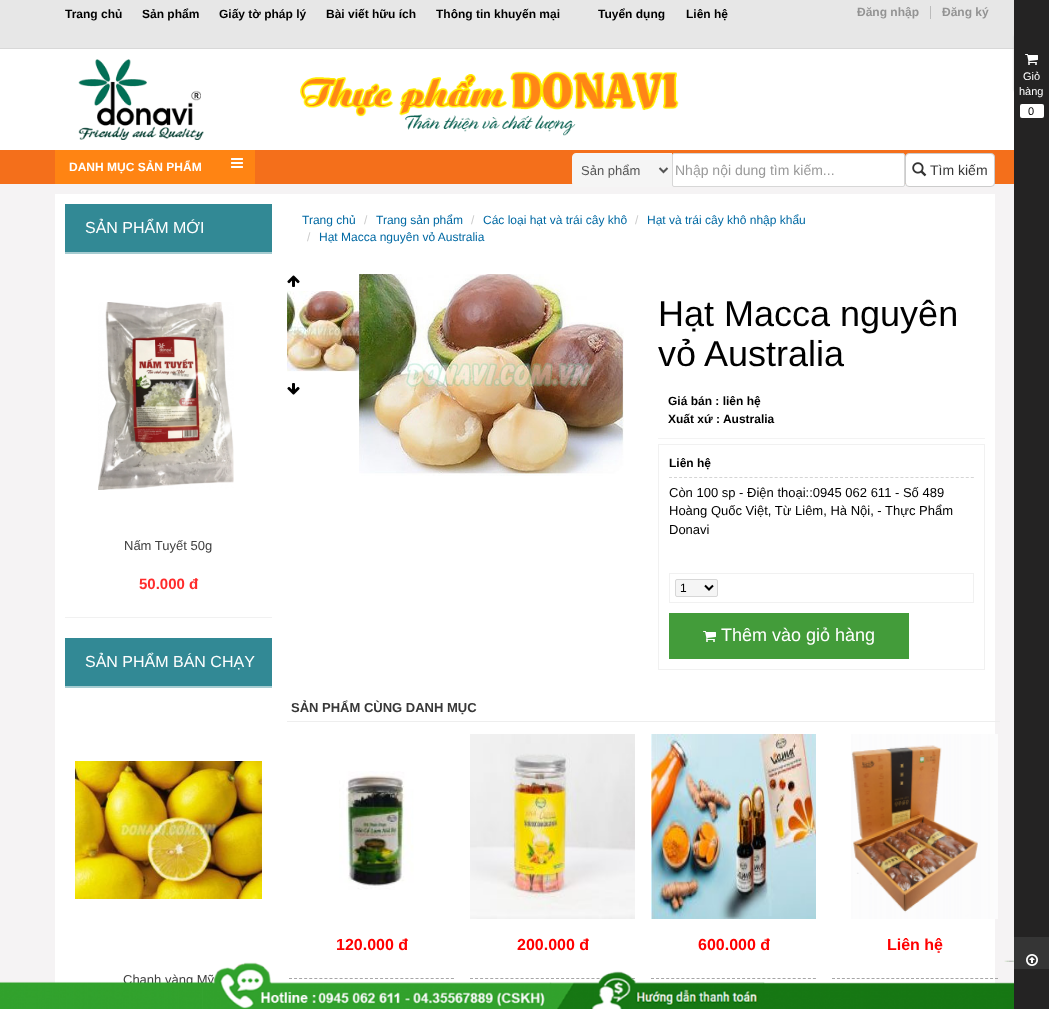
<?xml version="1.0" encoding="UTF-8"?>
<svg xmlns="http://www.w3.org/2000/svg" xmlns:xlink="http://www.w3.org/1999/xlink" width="1049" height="1009">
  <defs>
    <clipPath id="clip1"><path d="M 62 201 h 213 v 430 h -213 z m 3 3 h 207 v 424 h -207 z" clip-rule="evenodd" /></clipPath>
    <clipPath id="clip2"><path d="M 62 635 h 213 v 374 h -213 z m 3 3 h 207 v 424 h -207 z" clip-rule="evenodd" /></clipPath>
  </defs>
  <rect width="100%" height="100%" fill="#f5f3f4" />
  <rect width="1014" height="48" fill="#e7e7e7" />
  <rect y="48" width="1014" height="1" fill="#d8d8d8" />
  <rect x="930" y="6" width="1" height="13" fill="#bbbbbb" />
  <rect y="49" width="1014" height="101" fill="#ffffff" />
  <image x="78" y="59" width="601" height="81" xlink:href="image1.png" />
  <rect y="150" width="1014" height="34" fill="#f46f1b" />
  <rect x="55" y="150" width="200" height="34" fill="#ff8413" />
  <image x="231" y="158" width="12" height="10" xlink:href="image2.png" />
  <path d="M 576 153 h 96 v 34 h -96 c -2 0 -4 -2 -4 -4 v -26 c 0 -2 2 -4 4 -4 z" fill="#f5f5f5" />
  <path d="M 659.5 168 l 4 4 l 4 -4" fill="none" stroke="#555555" stroke-width="2" />
  <rect x="672.5" y="153.5" width="232" height="33" rx="1.5" fill="#ffffff" stroke="#d7d7d7" />
  <rect x="905.5" y="153.5" width="89" height="33" rx="3.5" fill="#ffffff" stroke="#cccccc" />
  <image x="912" y="162" width="15" height="15" xlink:href="image3.png" />
  <rect x="1014" y="36" width="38" height="55" fill="#cccccc" filter="blur(1px)" />
  <rect x="1014" width="35" height="1009" fill="#242323" />
  <image x="1025" y="54" width="13" height="11" xlink:href="image4.png" />
  <rect x="1020" y="104" width="24" height="14" rx="2" fill="#ffffff" />
  <rect x="1014" y="937" width="35" height="32" fill="#353535" />
  <image x="1026" y="954" width="12" height="12" xlink:href="image5.png" />
  <rect x="55" y="194" width="940" height="815" fill="#ffffff" />
  <g clip-path="url(#clip1)">
    <rect x="65" y="204" width="207" height="424" fill="#666666" filter="blur(0.5px)" />
  </g>
  <rect x="65" y="204" width="207" height="48" fill="#328995" />
  <rect x="65" y="252" width="207" height="2" fill="#a6ccd1" />
  <rect x="65" y="617" width="207" height="1" fill="#f1f1f1" />
  <image x="98" y="302" width="136" height="188" xlink:href="image6.png" />
  <g clip-path="url(#clip2)">
    <rect x="65" y="638" width="207" height="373" fill="#666666" filter="blur(0.5px)" />
  </g>
  <rect x="65" y="638" width="207" height="48" fill="#328995" />
  <rect x="65" y="686" width="207" height="2" fill="#a6ccd1" />
  <image x="75" y="761" width="187" height="138" xlink:href="image7.png" />
  <image x="287" y="275" width="13" height="12" xlink:href="image8.png" />
  <image x="287" y="291" width="72" height="81" xlink:href="image9.png" />
  <image x="287" y="383" width="13" height="12" xlink:href="image10.png" />
  <image x="359" y="274" width="265" height="202" xlink:href="image11.png" />
  <rect x="658" y="438" width="327" height="1" fill="#f3f3f3" />
  <rect x="658.5" y="444.5" width="326" height="225" fill="none" stroke="#f1f1f1" />
  <path d="M 669 477.5 h 305" fill="none" stroke="#d5d5d5" stroke-dasharray="3 2.03" />
  <rect x="669.5" y="573.5" width="304" height="29" fill="none" stroke="#f1f1f1" />
  <rect x="675.5" y="579.5" width="42" height="17" rx="1.5" fill="#f5f5f5" stroke="#d7d7d7" />
  <path d="M 705 585.5 l 4 4 l 4 -4" fill="none" stroke="#000000" stroke-width="2" />
  <rect x="669" y="613" width="240" height="46" fill="#439c3a" />
  <image x="703" y="631" width="13" height="11" xlink:href="image12.png" />
  <rect x="287" y="721" width="713" height="1" fill="#eeeeee" />
  <image x="339" y="771" width="75" height="119" xlink:href="image13.png" />
  <path d="M 289 978.5 h 165" fill="none" stroke="#a6a6a6" stroke-dasharray="3 2.06" />
  <image x="470" y="734" width="165" height="185" xlink:href="image14.png" />
  <path d="M 470 978.5 h 165" fill="none" stroke="#a6a6a6" stroke-dasharray="3 2.06" />
  <image x="651" y="734" width="165" height="185" xlink:href="image15.png" />
  <path d="M 651 978.5 h 165" fill="none" stroke="#a6a6a6" stroke-dasharray="3 2.06" />
  <image x="851" y="734" width="147" height="185" xlink:href="image16.png" />
  <path d="M 832 978.5 h 166" fill="none" stroke="#a6a6a6" stroke-dasharray="3 1.94" />
  <text x="65" y="18" style="font-family: Liberation Sans; font-size: 12px; font-weight: bold; fill: #000000">Trang chủ</text>
  <text x="142" y="18" style="font-family: Liberation Sans; font-size: 12px; font-weight: bold; fill: #000000">Sản phẩm</text>
  <text x="219" y="18" style="font-family: Liberation Sans; font-size: 12px; font-weight: bold; fill: #000000">Giấy tờ pháp lý</text>
  <text x="326" y="18" style="font-family: Liberation Sans; font-size: 12px; font-weight: bold; fill: #000000">Bài viết hữu ích</text>
  <text x="436" y="18" style="font-family: Liberation Sans; font-size: 12px; font-weight: bold; fill: #000000">Thông tin khuyến mại</text>
  <text x="598" y="18" style="font-family: Liberation Sans; font-size: 12px; font-weight: bold; fill: #000000">Tuyển dụng</text>
  <text x="686" y="18" style="font-family: Liberation Sans; font-size: 12px; font-weight: bold; fill: #000000">Liên hệ</text>
  <text x="857" y="16" style="font-family: Liberation Sans; font-size: 12px; font-weight: bold; fill: #939393">Đăng nhập</text>
  <text x="942" y="16" style="font-family: Liberation Sans; font-size: 12px; font-weight: bold; fill: #939393">Đăng ký</text>
  <text x="69" y="171" style="font-family: Liberation Sans; font-size: 12px; font-weight: bold; fill: #ffffff">DANH MỤC SẢN PHẨM</text>
  <text x="581" y="175" style="font-family: Liberation Sans; font-size: 13px; fill: #555555">Sản phẩm</text>
  <text x="675" y="175" style="font-family: Liberation Sans; font-size: 14px; fill: #999999">Nhập nội dung tìm kiếm...</text>
  <text x="930" y="175" style="font-family: Liberation Sans; font-size: 14px; fill: #383838">Tìm kiếm</text>
  <text x="1023" y="80" style="font-family: Liberation Sans; font-size: 11px; fill: #ffffff">Giỏ</text>
  <text x="1019" y="95" style="font-family: Liberation Sans; font-size: 11px; fill: #ffffff">hàng</text>
  <text x="1028" y="115" style="font-family: Liberation Sans; font-size: 11px; fill: #000000">0</text>
  <text x="85" y="233" style="font-family: Liberation Sans; font-size: 16px; fill: #ffffff">SẢN PHẨM MỚI</text>
  <text x="124" y="550" style="font-family: Liberation Sans; font-size: 13px; fill: #414141">Nấm Tuyết 50g</text>
  <text x="139" y="589" style="font-family: Liberation Sans; font-size: 15px; font-weight: bold; fill: #ff2b2b">50.000 đ</text>
  <text x="85" y="667" style="font-family: Liberation Sans; font-size: 16px; fill: #ffffff">SẢN PHẨM BÁN CHẠY</text>
  <text x="123" y="984" style="font-family: Liberation Sans; font-size: 13px; fill: #414141">Chanh vàng Mỹ</text>
  <text x="302" y="224" style="font-family: Liberation Sans; font-size: 12px; fill: #0069a3">Trang chủ</text>
  <text x="364" y="224" style="font-family: Liberation Sans; font-size: 12px; fill: #cccccc">/</text>
  <text x="376" y="224" style="font-family: Liberation Sans; font-size: 12px; fill: #0069a3">Trang sản phẩm</text>
  <text x="471" y="224" style="font-family: Liberation Sans; font-size: 12px; fill: #cccccc">/</text>
  <text x="483" y="224" style="font-family: Liberation Sans; font-size: 12px; fill: #0069a3">Các loại hạt và trái cây khô</text>
  <text x="635" y="224" style="font-family: Liberation Sans; font-size: 12px; fill: #cccccc">/</text>
  <text x="647" y="224" style="font-family: Liberation Sans; font-size: 12px; fill: #0069a3">Hạt và trái cây khô nhập khẩu</text>
  <text x="307" y="241" style="font-family: Liberation Sans; font-size: 12px; fill: #cccccc">/</text>
  <text x="319" y="241" style="font-family: Liberation Sans; font-size: 12px; fill: #0069a3">Hạt Macca nguyên vỏ Australia</text>
  <text x="658" y="326" style="font-family: Liberation Sans; font-size: 36px; fill: #000000">Hạt Macca nguyên</text>
  <text x="658" y="366" style="font-family: Liberation Sans; font-size: 36px; fill: #000000">vỏ Australia</text>
  <text x="668" y="405" style="font-family: Liberation Sans; font-size: 12px; font-weight: bold; fill: #000000">Giá bán : liên hệ</text>
  <text x="668" y="423" style="font-family: Liberation Sans; font-size: 12px; font-weight: bold; fill: #000000">Xuất xứ : Australia</text>
  <text x="669" y="467" style="font-family: Liberation Sans; font-size: 12px; font-weight: bold; fill: #000000">Liên hệ</text>
  <text x="669" y="497" style="font-family: Liberation Sans; font-size: 13px; fill: #000000">Còn 100 sp - Điện thoại::0945 062 611 - Số 489</text>
  <text x="669" y="515" style="font-family: Liberation Sans; font-size: 13px; fill: #000000">Hoàng Quốc Việt, Từ Liêm, Hà Nội, - Thực Phẩm</text>
  <text x="669" y="534" style="font-family: Liberation Sans; font-size: 13px; fill: #000000">Donavi</text>
  <text x="680" y="592" style="font-family: Liberation Sans; font-size: 12px; fill: #000000">1</text>
  <text x="721" y="641" style="font-family: Liberation Sans; font-size: 18px; fill: #ffffff">Thêm vào giỏ hàng</text>
  <text x="291" y="712" style="font-family: Liberation Sans; font-size: 13px; font-weight: bold; fill: #383838">SẢN PHẨM CÙNG DANH MỤC</text>
  <text x="336" y="950" style="font-family: Liberation Sans; font-size: 16px; font-weight: bold; fill: #ff0000">120.000 đ</text>
  <text x="517" y="950" style="font-family: Liberation Sans; font-size: 16px; font-weight: bold; fill: #ff0000">200.000 đ</text>
  <text x="698" y="950" style="font-family: Liberation Sans; font-size: 16px; font-weight: bold; fill: #ff0000">600.000 đ</text>
  <text x="887" y="950" style="font-family: Liberation Sans; font-size: 16px; font-weight: bold; fill: #ff0000">Liên hệ</text>
  <image x="0" y="960" width="1014" height="49" xlink:href="image17.png" />
</svg>
